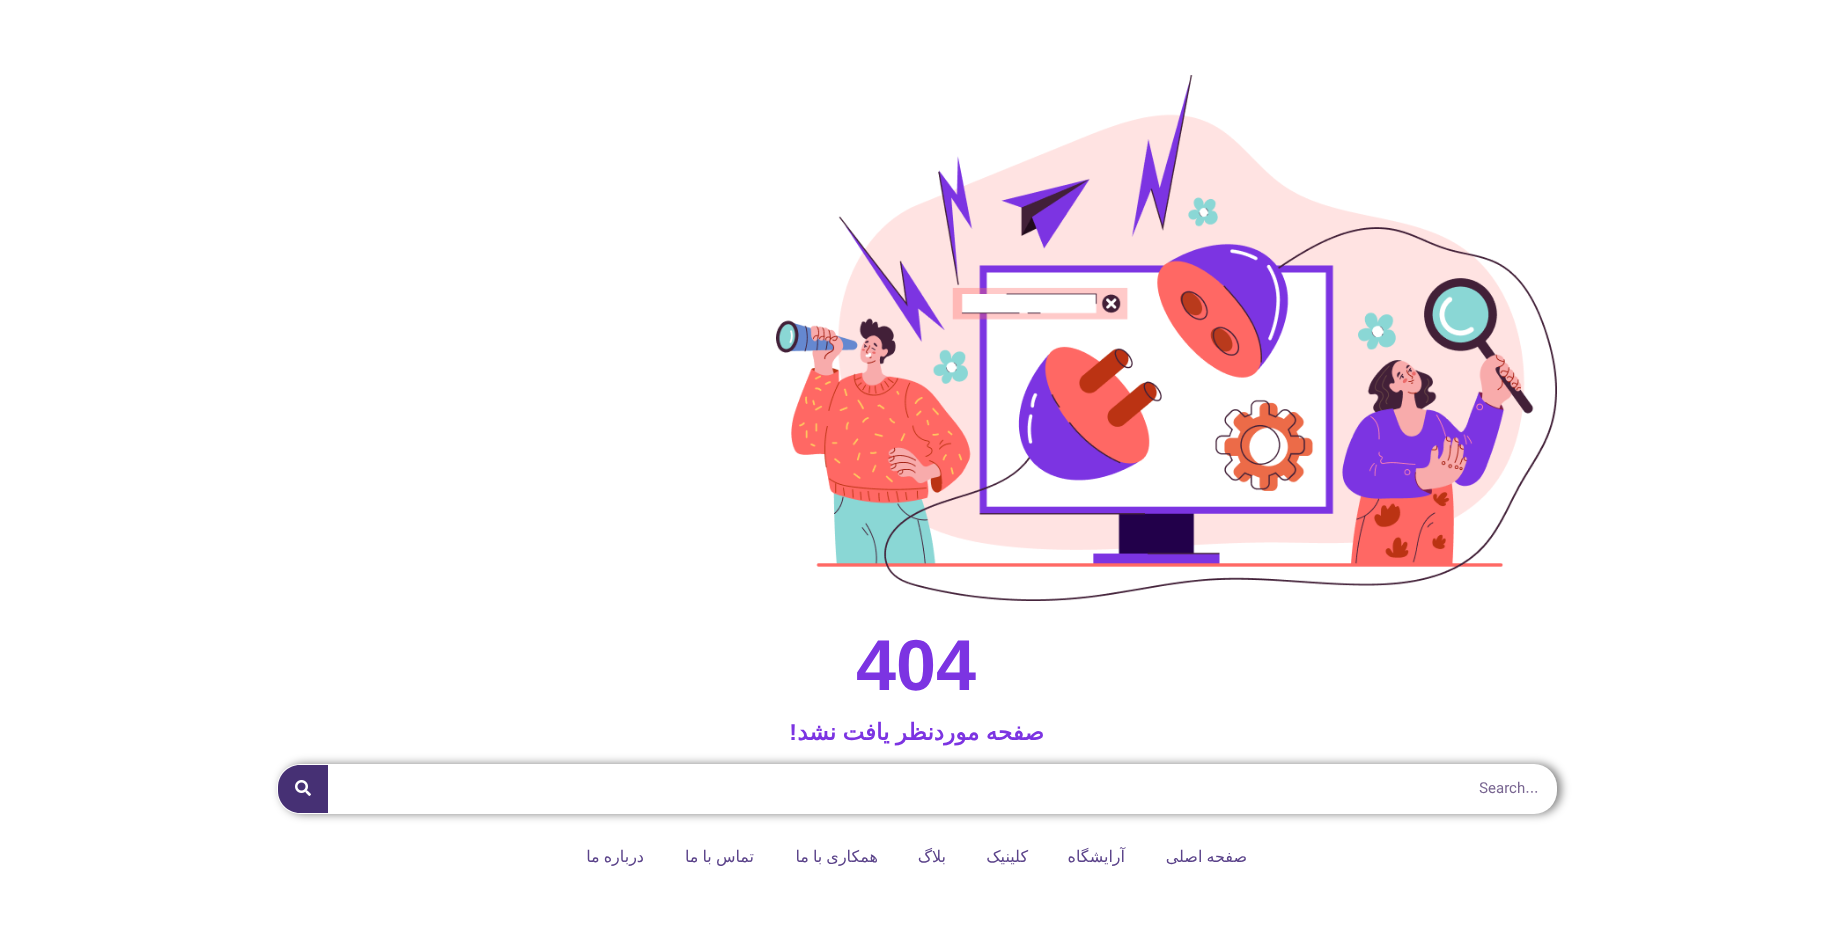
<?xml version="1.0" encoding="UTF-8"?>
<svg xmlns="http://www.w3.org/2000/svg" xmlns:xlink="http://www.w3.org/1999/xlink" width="1833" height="929">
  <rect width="100%" height="100%" fill="#ffffff" />
  <image x="776" y="75" width="781" height="526" xlink:href="image1.png" />
  <rect x="281" y="764" width="1280" height="50" rx="23" fill="#000000" fill-opacity="0.5" filter="blur(5px)" />
  <rect x="277" y="764" width="1280" height="50" rx="23" fill="#ffffff" />
  <path d="M 300 765 h 28 v 48 h -28 c -12 0 -22 -10 -22 -22 v -4 c 0 -12 10 -22 22 -22 z" fill="#463074" />
  <image x="295" y="780" width="16" height="16" xlink:href="image2.png" />
  <text x="856" y="690" style="font-family: Liberation Sans; font-size: 72px; font-weight: bold; fill: #7c34e2">404</text>
  <text x="1044" y="740" word-spacing="-1" style="font-family: DejaVu Sans; font-size: 23px; font-weight: bold; direction: rtl; fill: #7c34e2">صفحه موردنظر یافت نشد</text>
  <text x="797" y="740" style="font-family: Liberation Sans; font-size: 23px; font-weight: bold; direction: rtl; fill: #7c34e2">!</text>
  <text x="1479" y="793" style="font-family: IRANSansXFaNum; font-size: 15px; fill: #7a6792">Search...</text>
  <text x="1247" y="862" word-spacing="-1" style="font-family: DejaVu Sans; font-size: 16px; direction: rtl; fill: #5b438a">صفحه اصلی</text>
  <text x="1125" y="862" style="font-family: DejaVu Sans; font-size: 16px; direction: rtl; fill: #5b438a">آرایشگاه</text>
  <text x="1028" y="862" style="font-family: DejaVu Sans; font-size: 16px; direction: rtl; fill: #5b438a">کلینیک</text>
  <text x="946" y="862" style="font-family: DejaVu Sans; font-size: 16px; direction: rtl; fill: #5b438a">بلاگ</text>
  <text x="878" y="862" word-spacing="-1" style="font-family: DejaVu Sans; font-size: 16px; direction: rtl; fill: #5b438a">همکاری با ما</text>
  <text x="754" y="862" word-spacing="-1" style="font-family: DejaVu Sans; font-size: 16px; direction: rtl; fill: #5b438a">تماس با ما</text>
  <text x="644" y="862" word-spacing="-1" style="font-family: DejaVu Sans; font-size: 16px; direction: rtl; fill: #5b438a">درباره ما</text>
</svg>
